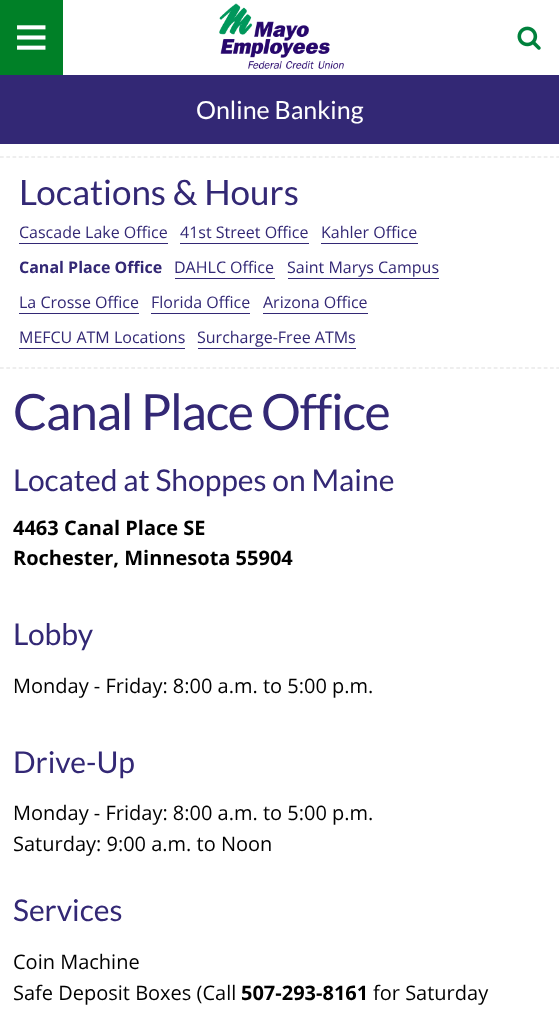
<?xml version="1.0" encoding="UTF-8"?>
<svg xmlns="http://www.w3.org/2000/svg" xmlns:xlink="http://www.w3.org/1999/xlink" width="559" height="1009">
  <rect width="100%" height="100%" fill="#ffffff" />
  <rect width="63" height="75" fill="#008027" />
  <image x="17" y="25" width="29" height="25" xlink:href="image1.png" />
  <image x="219" y="3" width="125" height="66" xlink:href="image2.png" />
  <image x="517" y="26" width="24" height="24" xlink:href="image3.png" />
  <rect y="75" width="559" height="69" fill="#332875" />
  <path d="M 0 157 h 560" fill="none" stroke="#dedede" stroke-width="1.2" stroke-dasharray="3.75 2.5" />
  <path d="M 0 368 h 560" fill="none" stroke="#dedede" stroke-width="1.2" stroke-dasharray="3.75 2.5" />
  <rect x="19" y="243" width="149" height="1" fill="#332875" />
  <rect x="180" y="243" width="129" height="1" fill="#332875" />
  <rect x="321" y="243" width="97" height="1" fill="#332875" />
  <rect x="175" y="278" width="100" height="1" fill="#332875" />
  <rect x="288" y="278" width="151" height="1" fill="#332875" />
  <rect x="19" y="313" width="120" height="1" fill="#332875" />
  <rect x="151" y="313" width="99" height="1" fill="#332875" />
  <rect x="263" y="313" width="105" height="1" fill="#332875" />
  <rect x="19" y="348" width="166" height="1" fill="#332875" />
  <rect x="198" y="348" width="158" height="1" fill="#332875" />
  <text x="196" y="119" style="font-family: Lato; font-size: 25px; fill: #ffffff">Online Banking</text>
  <text x="19" y="205" style="font-family: Lato; font-size: 35px; fill: #332875">Locations &amp; Hours</text>
  <text x="19" y="238" style="font-family: Open Sans; font-size: 16px; fill: #332875">Cascade Lake Office</text>
  <text x="180" y="238" style="font-family: Open Sans; font-size: 16px; fill: #332875">41st Street Office</text>
  <text x="321" y="238" style="font-family: Open Sans; font-size: 16px; fill: #332875">Kahler Office</text>
  <text x="19" y="273" style="font-family: Open Sans; font-size: 16px; font-weight: bold; fill: #332875">Canal Place Office</text>
  <text x="174" y="273" style="font-family: Open Sans; font-size: 16px; fill: #332875">DAHLC Office</text>
  <text x="287" y="273" style="font-family: Open Sans; font-size: 16px; fill: #332875">Saint Marys Campus</text>
  <text x="19" y="308" style="font-family: Open Sans; font-size: 16px; fill: #332875">La Crosse Office</text>
  <text x="151" y="308" style="font-family: Open Sans; font-size: 16px; fill: #332875">Florida Office</text>
  <text x="263" y="308" style="font-family: Open Sans; font-size: 16px; fill: #332875">Arizona Office</text>
  <text x="19" y="343" style="font-family: Open Sans; font-size: 16px; fill: #332875">MEFCU ATM Locations</text>
  <text x="197" y="343" style="font-family: Open Sans; font-size: 16px; fill: #332875">Surcharge-Free ATMs</text>
  <text x="13" y="430" style="font-family: Lato; font-size: 50px; letter-spacing: -1.25px; fill: #332875">Canal Place Office</text>
  <text x="13" y="491" style="font-family: Lato; font-size: 30px; fill: #332875">Located at Shoppes on Maine</text>
  <text x="13" y="535" style="font-family: Open Sans; font-size: 20px; font-weight: bold; fill: #000000">4463 Canal Place SE</text>
  <text x="13" y="565" style="font-family: Open Sans; font-size: 20px; font-weight: bold; fill: #000000">Rochester, Minnesota 55904</text>
  <text x="13" y="645" style="font-family: Lato; font-size: 30px; fill: #332875">Lobby</text>
  <text x="13" y="693" style="font-family: Open Sans; font-size: 20px; fill: #000000">Monday - Friday: 8:00 a.m. to 5:00 p.m.</text>
  <text x="13" y="773" style="font-family: Lato; font-size: 30px; fill: #332875">Drive-Up</text>
  <text x="13" y="820" style="font-family: Open Sans; font-size: 20px; fill: #000000">Monday - Friday: 8:00 a.m. to 5:00 p.m.</text>
  <text x="13" y="851" style="font-family: Open Sans; font-size: 20px; fill: #000000">Saturday: 9:00 a.m. to Noon</text>
  <text x="13" y="921" style="font-family: Lato; font-size: 30px; fill: #332875">Services</text>
  <text x="13" y="969" style="font-family: Open Sans; font-size: 20px; fill: #000000">Coin Machine</text>
  <text x="13" y="1000" style="font-family: Open Sans; font-size: 20px; fill: #000000">Safe Deposit Boxes (Call</text>
  <text x="241" y="1000" style="font-family: Open Sans; font-size: 20px; font-weight: bold; fill: #000000">507-293-8161</text>
  <text x="373" y="1000" style="font-family: Open Sans; font-size: 20px; fill: #000000">for Saturday</text>
</svg>
